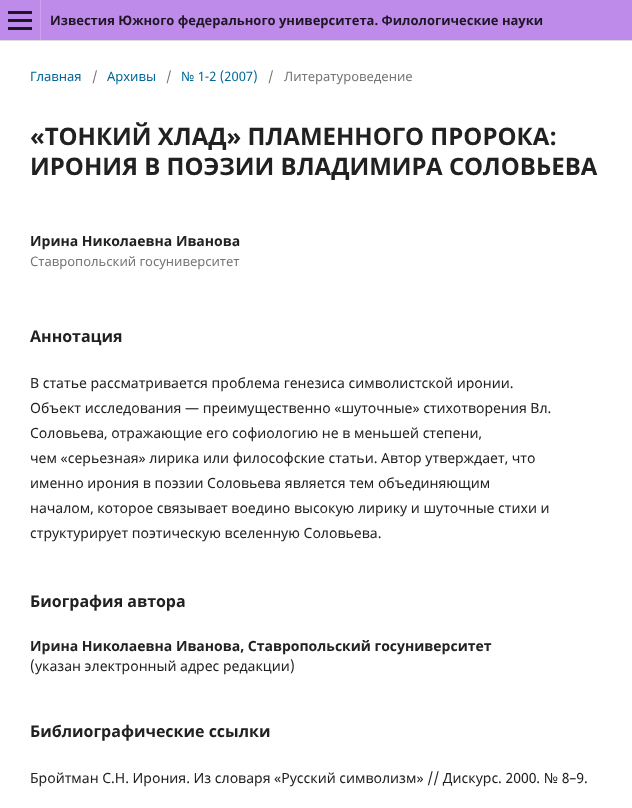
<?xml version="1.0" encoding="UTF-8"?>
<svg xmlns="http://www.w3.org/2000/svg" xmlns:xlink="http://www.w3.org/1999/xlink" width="632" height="808">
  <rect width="100%" height="100%" fill="#ffffff" />
  <rect width="632" height="40" fill="#bf8bea" />
  <rect y="40" width="632" height="1" fill="#dddddd" />
  <rect x="40" width="1" height="40" fill="#cca2ee" />
  <rect x="8" y="27" width="24" height="3" fill="#1f1625" />
  <rect x="8" y="11" width="24" height="3" fill="#1f1625" />
  <rect x="8" y="19" width="24" height="3" fill="#1f1625" />
  <text x="50" y="25" style="font-family: Noto Sans; font-size: 13px; font-weight: bold; fill: #1f1625">Известия Южного федерального университета. Филологические науки</text>
  <text x="30" y="81" style="font-family: Noto Sans; font-size: 13px; fill: #006798">Главная</text>
  <text x="92" y="81" style="font-family: Noto Sans; font-size: 13px; fill: #757575">/</text>
  <text x="107" y="81" style="font-family: Noto Sans; font-size: 13px; fill: #006798">Архивы</text>
  <text x="166" y="81" style="font-family: Noto Sans; font-size: 13px; fill: #757575">/</text>
  <text x="181" y="81" style="font-family: Noto Sans; font-size: 13px; fill: #006798">№ 1-2 (2007)</text>
  <text x="268" y="81" style="font-family: Noto Sans; font-size: 13px; fill: #757575">/</text>
  <text x="284" y="81" style="font-family: Noto Sans; font-size: 13px; fill: #757575">Литературоведение</text>
  <text x="30" y="145" style="font-family: Noto Sans; font-size: 24px; font-weight: bold; fill: #212121">«ТОНКИЙ ХЛАД» ПЛАМЕННОГО ПРОРОКА:</text>
  <text x="30" y="175" style="font-family: Noto Sans; font-size: 24px; font-weight: bold; fill: #212121">ИРОНИЯ В ПОЭЗИИ ВЛАДИМИРА СОЛОВЬЕВА</text>
  <text x="30" y="246" style="font-family: Noto Sans; font-size: 14px; font-weight: bold; fill: #212121">Ирина Николаевна Иванова</text>
  <text x="30" y="266" style="font-family: Noto Sans; font-size: 13px; fill: #757575">Ставропольский госуниверситет</text>
  <text x="30" y="342" style="font-family: Noto Sans; font-size: 16px; font-weight: bold; fill: #212121">Аннотация</text>
  <text x="30" y="388" style="font-family: Noto Sans; font-size: 14px; fill: #212121">В статье рассматривается проблема генезиса символистской иронии.</text>
  <text x="30" y="413" style="font-family: Noto Sans; font-size: 14px; fill: #212121">Объект исследования — преимущественно «шуточные» стихотворения Вл.</text>
  <text x="30" y="438" style="font-family: Noto Sans; font-size: 14px; fill: #212121">Соловьева, отражающие его софиологию не в меньшей степени,</text>
  <text x="30" y="463" style="font-family: Noto Sans; font-size: 14px; fill: #212121">чем «серьезная» лирика или философские статьи. Автор утверждает, что</text>
  <text x="30" y="488" style="font-family: Noto Sans; font-size: 14px; fill: #212121">именно ирония в поэзии Соловьева является тем объединяющим</text>
  <text x="30" y="513" style="font-family: Noto Sans; font-size: 14px; fill: #212121">началом, которое связывает воедино высокую лирику и шуточные стихи и</text>
  <text x="30" y="538" style="font-family: Noto Sans; font-size: 14px; fill: #212121">структурирует поэтическую вселенную Соловьева.</text>
  <text x="30" y="607" style="font-family: Noto Sans; font-size: 16px; font-weight: bold; fill: #212121">Биография автора</text>
  <text x="30" y="651" style="font-family: Noto Sans; font-size: 14px; font-weight: bold; fill: #212121">Ирина Николаевна Иванова, Ставропольский госуниверситет</text>
  <text x="30" y="671" style="font-family: Noto Sans; font-size: 14px; fill: #212121">(указан электронный адрес редакции)</text>
  <text x="30" y="737" style="font-family: Noto Sans; font-size: 16px; font-weight: bold; fill: #212121">Библиографические ссылки</text>
  <text x="30" y="783" style="font-family: Noto Sans; font-size: 14px; fill: #212121">Бройтман С.Н. Ирония. Из словаря «Русский символизм» // Дискурс. 2000. № 8–9.</text>
</svg>
